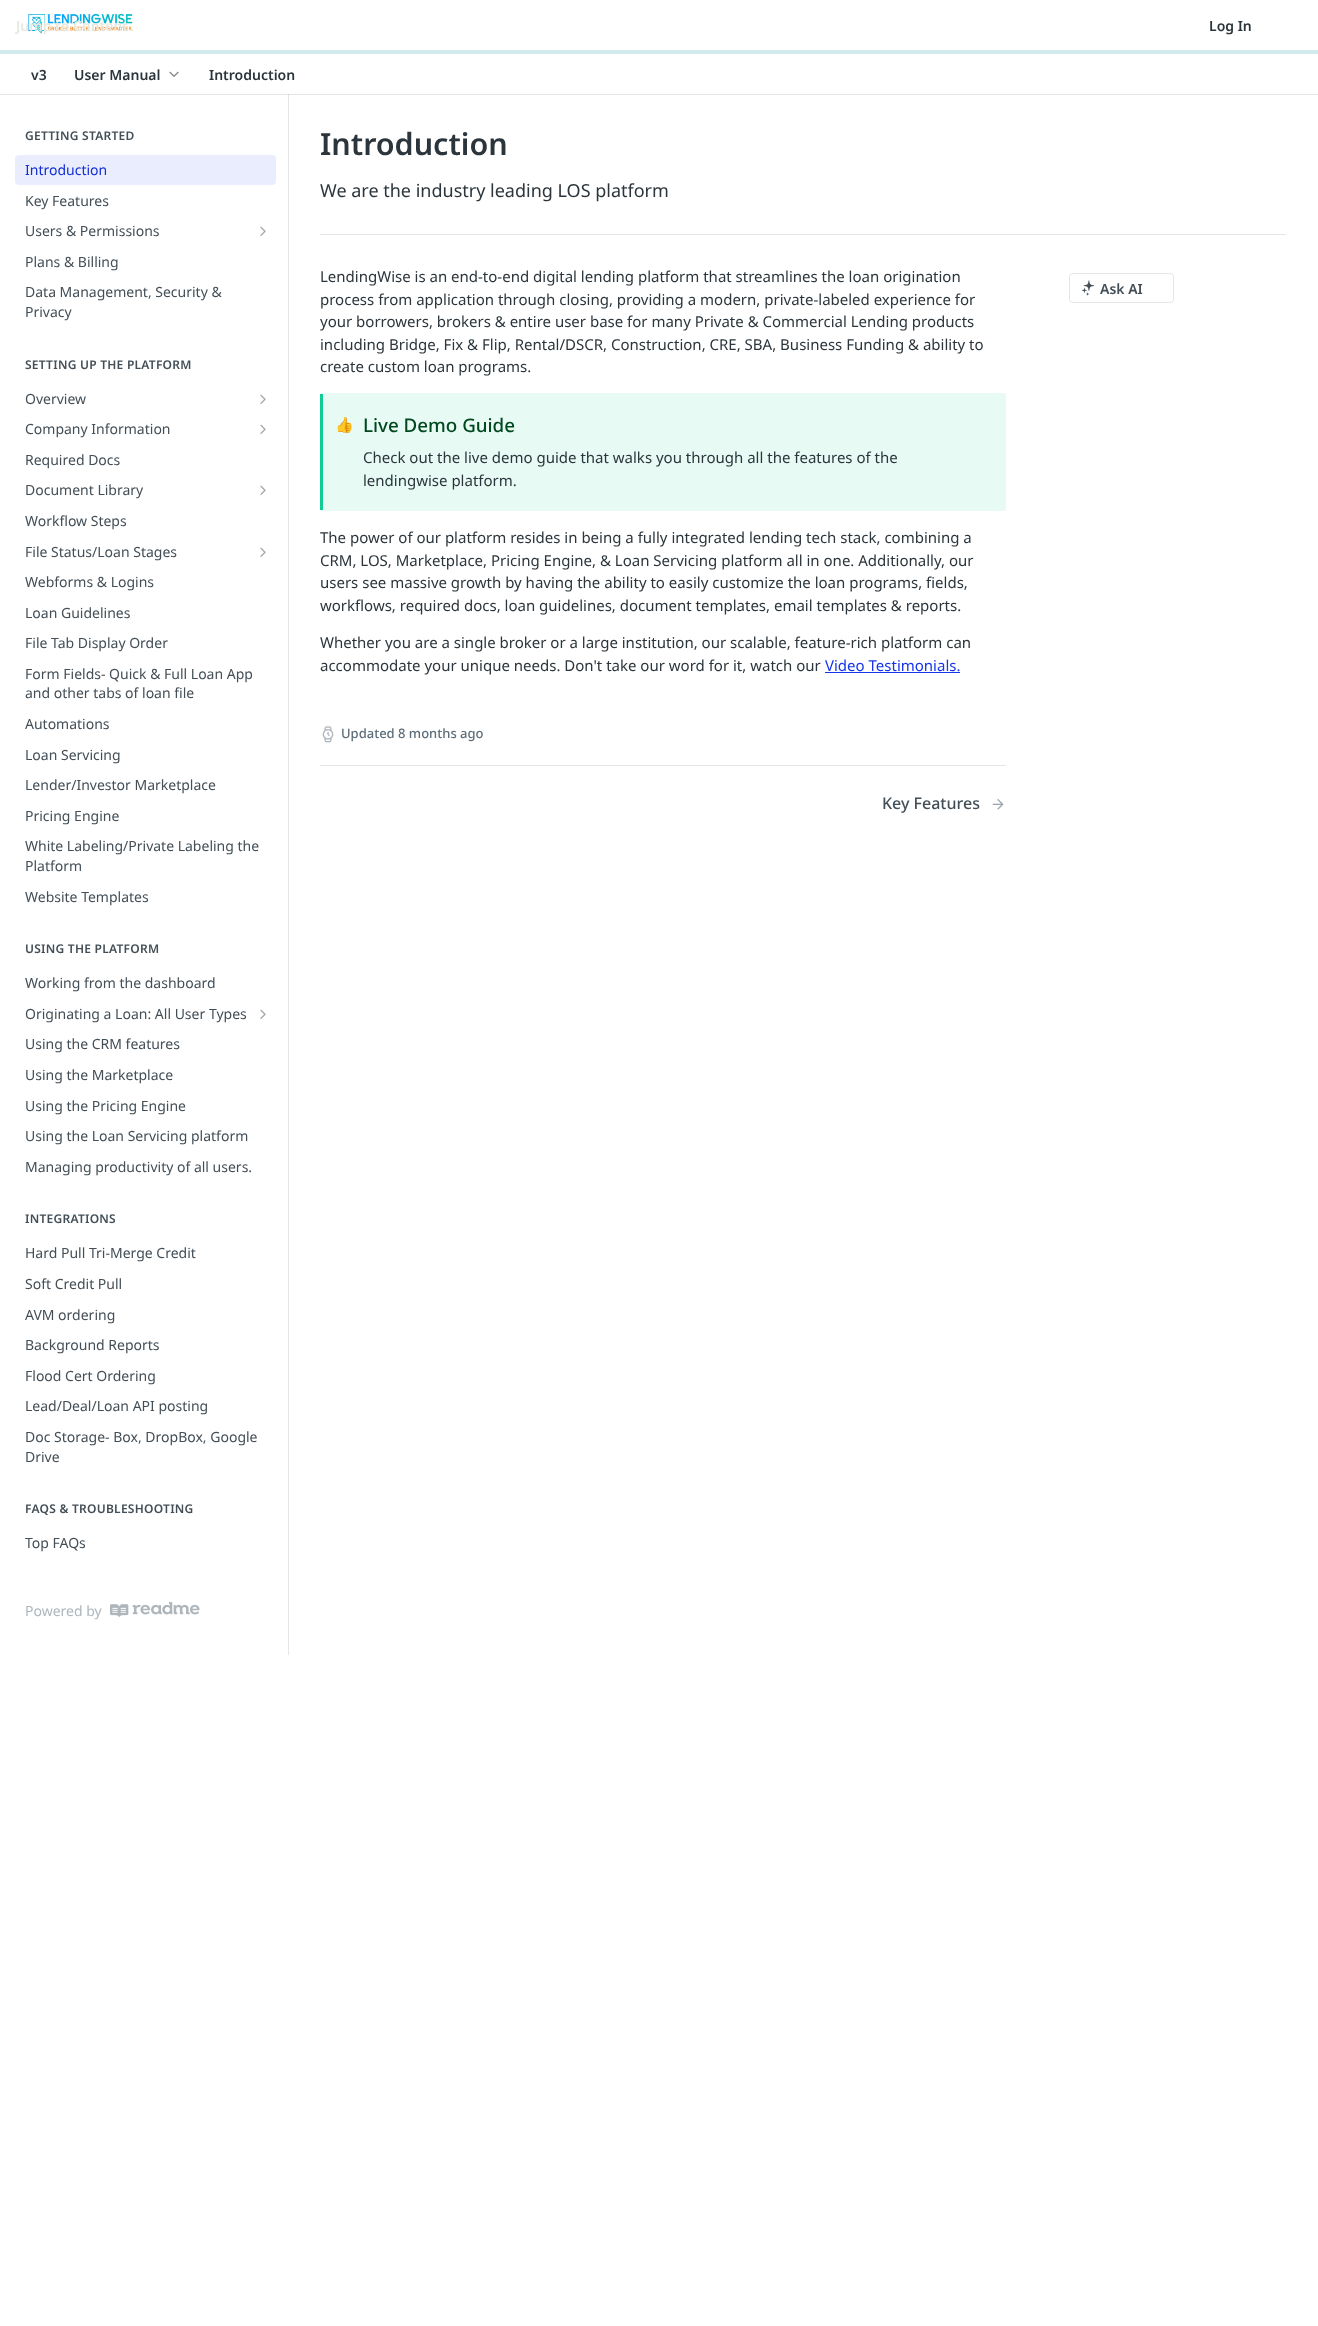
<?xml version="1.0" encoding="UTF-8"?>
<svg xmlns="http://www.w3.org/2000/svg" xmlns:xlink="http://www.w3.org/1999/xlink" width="1318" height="2326">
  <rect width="100%" height="100%" fill="#ffffff" />
  <rect y="94" width="1318" height="1" fill="#e6e6e6" />
  <rect y="50" width="1318" height="4" fill="#d2ebee" />
  <image x="28" y="13" width="105" height="21" xlink:href="image1.png" />
  <image x="169" y="71" width="10" height="6" xlink:href="image2.png" />
  <rect x="288" y="94" width="1" height="1561" fill="#e6e6e6" />
  <rect x="288" y="94" width="1" height="1" fill="#cfcfcf" />
  <rect x="15" y="155" width="261" height="30" rx="4" fill="#eaedfd" />
  <image x="260" y="226" width="6" height="10" xlink:href="image3.png" />
  <image x="260" y="394" width="6" height="10" xlink:href="image3.png" />
  <image x="260" y="424" width="6" height="10" xlink:href="image3.png" />
  <image x="260" y="485" width="6" height="10" xlink:href="image3.png" />
  <image x="260" y="547" width="6" height="10" xlink:href="image3.png" />
  <image x="260" y="1009" width="6" height="10" xlink:href="image3.png" />
  <image x="110" y="1602" width="90" height="16" xlink:href="image4.png" />
  <rect x="320" y="234" width="966" height="1" fill="#e6e6e6" />
  <rect x="320" y="393" width="686" height="118" rx="2" fill="#e7faf4" />
  <rect x="320" y="394" width="3" height="116" fill="#12ca93" />
  <rect x="825" y="672" width="135" height="1" fill="#1534eb" />
  <image x="322" y="726" width="12" height="17" xlink:href="image5.png" />
  <rect x="320" y="765" width="686" height="1" fill="#e6e6e6" />
  <image x="992" y="799" width="12" height="11" xlink:href="image6.png" />
  <rect x="1069.5" y="273.5" width="104" height="29" rx="3.5" fill="none" stroke="#e6e6e6" />
  <image x="1081" y="280" width="14" height="16" xlink:href="image7.png" />
  <text x="16" y="31" style="font-family: Noto Sans; font-size: 14px; font-weight: 600; fill: #e6e9e0">Jump to Content</text>
  <text x="1209" y="31" style="font-family: Noto Sans; font-size: 14px; font-weight: 600; fill: #2b353b">Log In</text>
  <text x="31" y="80" style="font-family: Noto Sans; font-size: 14px; font-weight: 600; fill: #2b353b">v3</text>
  <text x="74" y="80" style="font-family: Noto Sans; font-size: 14px; font-weight: 600; fill: #2b353b">User Manual</text>
  <text x="209" y="80" style="font-family: Noto Sans; font-size: 14px; font-weight: 600; fill: #2b353b">Introduction</text>
  <text x="25" y="140" style="font-family: Noto Sans; font-size: 12px; font-weight: 600; letter-spacing: 0.25px; fill: #434e56">GETTING STARTED</text>
  <text x="25" y="175" style="font-family: Noto Sans; font-size: 14px; fill: #122ed4">Introduction</text>
  <text x="25" y="206" style="font-family: Noto Sans; font-size: 14px; fill: #434e56">Key Features</text>
  <text x="25" y="236" style="font-family: Noto Sans; font-size: 14px; fill: #434e56">Users &amp; Permissions</text>
  <text x="25" y="267" style="font-family: Noto Sans; font-size: 14px; fill: #434e56">Plans &amp; Billing</text>
  <text x="25" y="297" style="font-family: Noto Sans; font-size: 14px; fill: #434e56">Data Management, Security &amp;</text>
  <text x="25" y="317" style="font-family: Noto Sans; font-size: 14px; fill: #434e56">Privacy</text>
  <text x="25" y="369" style="font-family: Noto Sans; font-size: 12px; font-weight: 600; letter-spacing: 0.25px; fill: #434e56">SETTING UP THE PLATFORM</text>
  <text x="25" y="404" style="font-family: Noto Sans; font-size: 14px; fill: #434e56">Overview</text>
  <text x="25" y="434" style="font-family: Noto Sans; font-size: 14px; fill: #434e56">Company Information</text>
  <text x="25" y="465" style="font-family: Noto Sans; font-size: 14px; fill: #434e56">Required Docs</text>
  <text x="25" y="495" style="font-family: Noto Sans; font-size: 14px; fill: #434e56">Document Library</text>
  <text x="25" y="526" style="font-family: Noto Sans; font-size: 14px; fill: #434e56">Workflow Steps</text>
  <text x="25" y="557" style="font-family: Noto Sans; font-size: 14px; fill: #434e56">File Status/Loan Stages</text>
  <text x="25" y="587" style="font-family: Noto Sans; font-size: 14px; fill: #434e56">Webforms &amp; Logins</text>
  <text x="25" y="618" style="font-family: Noto Sans; font-size: 14px; fill: #434e56">Loan Guidelines</text>
  <text x="25" y="648" style="font-family: Noto Sans; font-size: 14px; fill: #434e56">File Tab Display Order</text>
  <text x="25" y="679" style="font-family: Noto Sans; font-size: 14px; fill: #434e56">Form Fields- Quick &amp; Full Loan App</text>
  <text x="25" y="698" style="font-family: Noto Sans; font-size: 14px; fill: #434e56">and other tabs of loan file</text>
  <text x="25" y="729" style="font-family: Noto Sans; font-size: 14px; fill: #434e56">Automations</text>
  <text x="25" y="760" style="font-family: Noto Sans; font-size: 14px; fill: #434e56">Loan Servicing</text>
  <text x="25" y="790" style="font-family: Noto Sans; font-size: 14px; fill: #434e56">Lender/Investor Marketplace</text>
  <text x="25" y="821" style="font-family: Noto Sans; font-size: 14px; fill: #434e56">Pricing Engine</text>
  <text x="25" y="851" style="font-family: Noto Sans; font-size: 14px; fill: #434e56">White Labeling/Private Labeling the</text>
  <text x="25" y="871" style="font-family: Noto Sans; font-size: 14px; fill: #434e56">Platform</text>
  <text x="25" y="902" style="font-family: Noto Sans; font-size: 14px; fill: #434e56">Website Templates</text>
  <text x="25" y="953" style="font-family: Noto Sans; font-size: 12px; font-weight: 600; letter-spacing: 0.25px; fill: #434e56">USING THE PLATFORM</text>
  <text x="25" y="988" style="font-family: Noto Sans; font-size: 14px; fill: #434e56">Working from the dashboard</text>
  <text x="25" y="1019" style="font-family: Noto Sans; font-size: 14px; fill: #434e56">Originating a Loan: All User Types</text>
  <text x="25" y="1049" style="font-family: Noto Sans; font-size: 14px; fill: #434e56">Using the CRM features</text>
  <text x="25" y="1080" style="font-family: Noto Sans; font-size: 14px; fill: #434e56">Using the Marketplace</text>
  <text x="25" y="1111" style="font-family: Noto Sans; font-size: 14px; fill: #434e56">Using the Pricing Engine</text>
  <text x="25" y="1141" style="font-family: Noto Sans; font-size: 14px; fill: #434e56">Using the Loan Servicing platform</text>
  <text x="25" y="1172" style="font-family: Noto Sans; font-size: 14px; fill: #434e56">Managing productivity of all users.</text>
  <text x="25" y="1223" style="font-family: Noto Sans; font-size: 12px; font-weight: 600; letter-spacing: 0.25px; fill: #434e56">INTEGRATIONS</text>
  <text x="25" y="1258" style="font-family: Noto Sans; font-size: 14px; fill: #434e56">Hard Pull Tri-Merge Credit</text>
  <text x="25" y="1289" style="font-family: Noto Sans; font-size: 14px; fill: #434e56">Soft Credit Pull</text>
  <text x="25" y="1320" style="font-family: Noto Sans; font-size: 14px; fill: #434e56">AVM ordering</text>
  <text x="25" y="1350" style="font-family: Noto Sans; font-size: 14px; fill: #434e56">Background Reports</text>
  <text x="25" y="1381" style="font-family: Noto Sans; font-size: 14px; fill: #434e56">Flood Cert Ordering</text>
  <text x="25" y="1411" style="font-family: Noto Sans; font-size: 14px; fill: #434e56">Lead/Deal/Loan API posting</text>
  <text x="25" y="1442" style="font-family: Noto Sans; font-size: 14px; fill: #434e56">Doc Storage- Box, DropBox, Google</text>
  <text x="25" y="1462" style="font-family: Noto Sans; font-size: 14px; fill: #434e56">Drive</text>
  <text x="25" y="1513" style="font-family: Noto Sans; font-size: 12px; font-weight: 600; letter-spacing: 0.25px; fill: #434e56">FAQS &amp; TROUBLESHOOTING</text>
  <text x="25" y="1548" style="font-family: Noto Sans; font-size: 14px; fill: #434e56">Top FAQs</text>
  <text x="25" y="1616" style="font-family: Noto Sans; font-size: 14px; fill: #aeb6bc">Powered by</text>
  <text x="320" y="155" style="font-family: Noto Sans; font-size: 30.5px; font-weight: 600; fill: #2b353b">Introduction</text>
  <text x="320" y="197" style="font-family: Noto Sans; font-size: 18px; fill: #2b353b">We are the industry leading LOS platform</text>
  <text x="320" y="282" style="font-family: Noto Sans; font-size: 15px; fill: #2b353b">LendingWise is an end-to-end digital lending platform that streamlines the loan origination</text>
  <text x="320" y="305" style="font-family: Noto Sans; font-size: 15px; fill: #2b353b">process from application through closing, providing a modern, private-labeled experience for</text>
  <text x="320" y="327" style="font-family: Noto Sans; font-size: 15px; fill: #2b353b">your borrowers, brokers &amp; entire user base for many Private &amp; Commercial Lending products</text>
  <text x="320" y="350" style="font-family: Noto Sans; font-size: 15px; fill: #2b353b">including Bridge, Fix &amp; Flip, Rental/DSCR, Construction, CRE, SBA, Business Funding &amp; ability to</text>
  <text x="320" y="372" style="font-family: Noto Sans; font-size: 15px; fill: #2b353b">create custom loan programs.</text>
  <text x="335" y="430" style="font-family: Noto Color Emoji; font-size: 15px; fill: #2b353b">👍</text>
  <text x="363" y="432" style="font-family: Noto Sans; font-size: 18.75px; font-weight: 500; fill: #00491f">Live Demo Guide</text>
  <text x="363" y="463" style="font-family: Noto Sans; font-size: 15px; fill: #2b353b">Check out the live demo guide that walks you through all the features of the</text>
  <text x="363" y="486" style="font-family: Noto Sans; font-size: 15px; fill: #2b353b">lendingwise platform.</text>
  <text x="320" y="543" style="font-family: Noto Sans; font-size: 15px; fill: #2b353b">The power of our platform resides in being a fully integrated lending tech stack, combining a</text>
  <text x="320" y="566" style="font-family: Noto Sans; font-size: 15px; fill: #2b353b">CRM, LOS, Marketplace, Pricing Engine, &amp; Loan Servicing platform all in one. Additionally, our</text>
  <text x="320" y="588" style="font-family: Noto Sans; font-size: 15px; fill: #2b353b">users see massive growth by having the ability to easily customize the loan programs, fields,</text>
  <text x="320" y="611" style="font-family: Noto Sans; font-size: 15px; fill: #2b353b">workflows, required docs, loan guidelines, document templates, email templates &amp; reports.</text>
  <text x="320" y="648" style="font-family: Noto Sans; font-size: 15px; fill: #2b353b">Whether you are a single broker or a large institution, our scalable, feature-rich platform can</text>
  <text x="320" y="671" style="font-family: Noto Sans; font-size: 15px; fill: #2b353b">accommodate your unique needs. Don't take our word for it, watch our</text>
  <text x="825" y="671" style="font-family: Noto Sans; font-size: 15px; fill: #1534eb">Video Testimonials.</text>
  <text x="341" y="738" style="font-family: Noto Sans; font-size: 13px; font-weight: 500; fill: #5d6d79">Updated 8 months ago</text>
  <text x="882" y="809" style="font-family: Noto Sans; font-size: 16px; font-weight: 500; fill: #434e56">Key Features</text>
  <text x="1100" y="294" style="font-family: Noto Sans; font-size: 14px; font-weight: 600; fill: #434e56">Ask AI</text>
</svg>
